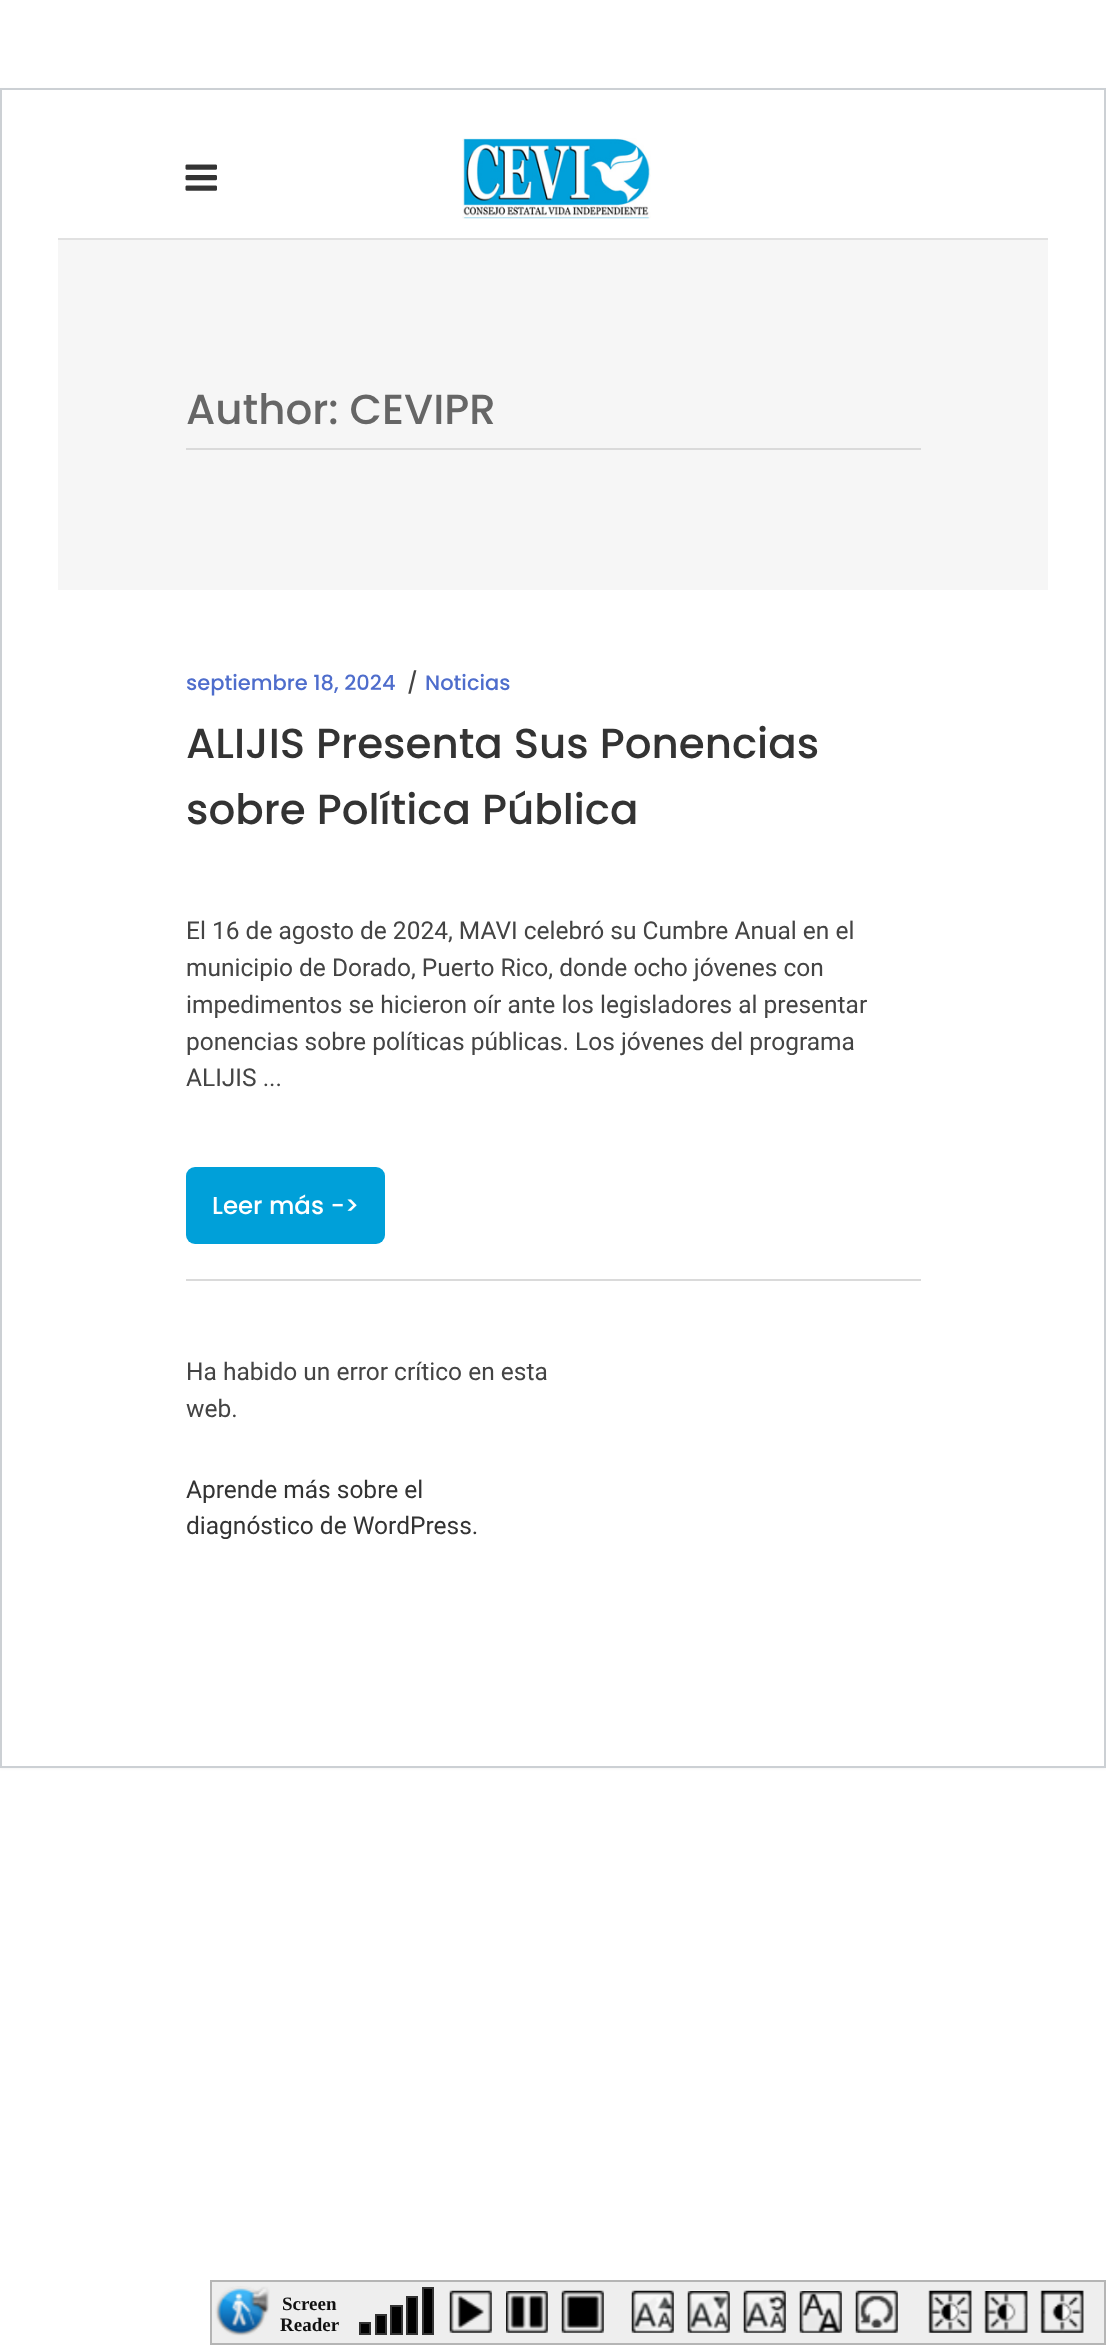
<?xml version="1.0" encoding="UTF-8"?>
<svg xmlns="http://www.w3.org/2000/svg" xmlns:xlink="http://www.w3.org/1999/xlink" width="1106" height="2345">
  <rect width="100%" height="100%" fill="#ffffff" />
  <rect y="89" width="1106" height="1680" fill="#000000" fill-opacity="0.04" filter="blur(1px)" />
  <rect x="1" y="89" width="1104" height="1678" fill="#ffffff" stroke="#ccd0d4" stroke-width="2" />
  <rect x="58" y="238" width="990" height="2" fill="#e1e1e1" />
  <image x="185" y="164" width="32" height="27" xlink:href="image1.png" />
  <image x="462" y="138" width="189" height="81" xlink:href="image2.png" />
  <rect x="58" y="240" width="990" height="350" fill="#f6f6f6" />
  <rect x="186" y="448" width="735" height="2" fill="#dadada" />
  <rect x="186" y="1167" width="199" height="77" rx="9" fill="#00a0d9" />
  <rect x="186" y="1279" width="735" height="2" fill="#dadada" />
  <rect x="211" y="2281" width="894" height="63" fill="#eeeeee" stroke="#b5b5b5" stroke-width="2" />
  <image x="215" y="2286" width="55" height="50" xlink:href="image3.png" />
  <rect x="360" y="2323" width="10" height="11" fill="#000000" stroke="#333333" stroke-width="2" />
  <rect x="376" y="2315" width="10" height="19" fill="#000000" stroke="#333333" stroke-width="2" />
  <rect x="391" y="2306" width="11" height="28" fill="#000000" stroke="#333333" stroke-width="2" />
  <rect x="407" y="2297" width="10" height="37" fill="#000000" stroke="#333333" stroke-width="2" />
  <rect x="423" y="2288" width="10" height="46" fill="#000000" stroke="#333333" stroke-width="2" />
  <image x="449" y="2290" width="43" height="43" xlink:href="image4.png" />
  <image x="506" y="2291" width="42" height="42" xlink:href="image5.png" />
  <image x="561" y="2290" width="43" height="43" xlink:href="image6.png" />
  <image x="631" y="2290" width="43" height="43" xlink:href="image7.png" />
  <image x="687" y="2291" width="43" height="42" xlink:href="image8.png" />
  <image x="743" y="2290" width="43" height="43" xlink:href="image9.png" />
  <image x="799" y="2291" width="43" height="42" xlink:href="image10.png" />
  <image x="855" y="2290" width="43" height="43" xlink:href="image11.png" />
  <image x="928" y="2290" width="44" height="43" xlink:href="image12.png" />
  <image x="984" y="2291" width="44" height="42" xlink:href="image13.png" />
  <image x="1040" y="2290" width="44" height="43" xlink:href="image14.png" />
  <text x="186" y="424" style="font-family: Poppins; font-size: 42px; font-weight: 500; fill: #666666">Author: CEVIPR</text>
  <text x="186" y="690" style="font-family: Poppins; font-size: 21px; font-weight: 500; fill: #4e6dcc">septiembre 18, 2024</text>
  <text x="407" y="690" style="font-family: Poppins; font-size: 21px; font-weight: 500; fill: #444444">/</text>
  <text x="425" y="690" style="font-family: Poppins; font-size: 21px; font-weight: 500; fill: #4e6dcc">Noticias</text>
  <text x="186" y="758" style="font-family: Poppins; font-size: 42px; font-weight: 500; fill: #333333">ALIJIS Presenta Sus Ponencias</text>
  <text x="186" y="824" style="font-family: Poppins; font-size: 42px; font-weight: 500; fill: #333333">sobre Política Pública</text>
  <text x="186" y="939" style="font-family: Roboto; font-size: 24.5px; fill: #444444">El 16 de agosto de 2024, MAVI celebró su Cumbre Anual en el</text>
  <text x="186" y="976" style="font-family: Roboto; font-size: 24.5px; fill: #444444">municipio de Dorado, Puerto Rico, donde ocho jóvenes con</text>
  <text x="186" y="1013" style="font-family: Roboto; font-size: 24.5px; fill: #444444">impedimentos se hicieron oír ante los legisladores al presentar</text>
  <text x="186" y="1050" style="font-family: Roboto; font-size: 24.5px; fill: #444444">ponencias sobre políticas públicas. Los jóvenes del programa</text>
  <text x="186" y="1086" style="font-family: Roboto; font-size: 24.5px; fill: #444444">ALIJIS ...</text>
  <text x="212" y="1214" style="font-family: Poppins; font-size: 24.5px; font-weight: 500; fill: #ffffff">Leer más -&gt;</text>
  <text x="186" y="1380" style="font-family: Roboto; font-size: 24.5px; fill: #444444">Ha habido un error crítico en esta</text>
  <text x="186" y="1417" style="font-family: Roboto; font-size: 24.5px; fill: #444444">web.</text>
  <text x="186" y="1498" style="font-family: Roboto; font-size: 24.5px; fill: #333333">Aprende más sobre el</text>
  <text x="186" y="1534" style="font-family: Roboto; font-size: 24.5px; fill: #333333">diagnóstico de WordPress.</text>
  <text x="282" y="2310" style="font-family: Liberation Serif; font-size: 19px; font-weight: bold; fill: #111111">Screen</text>
  <text x="280" y="2331" style="font-family: Liberation Serif; font-size: 19px; font-weight: bold; fill: #111111">Reader</text>
</svg>
